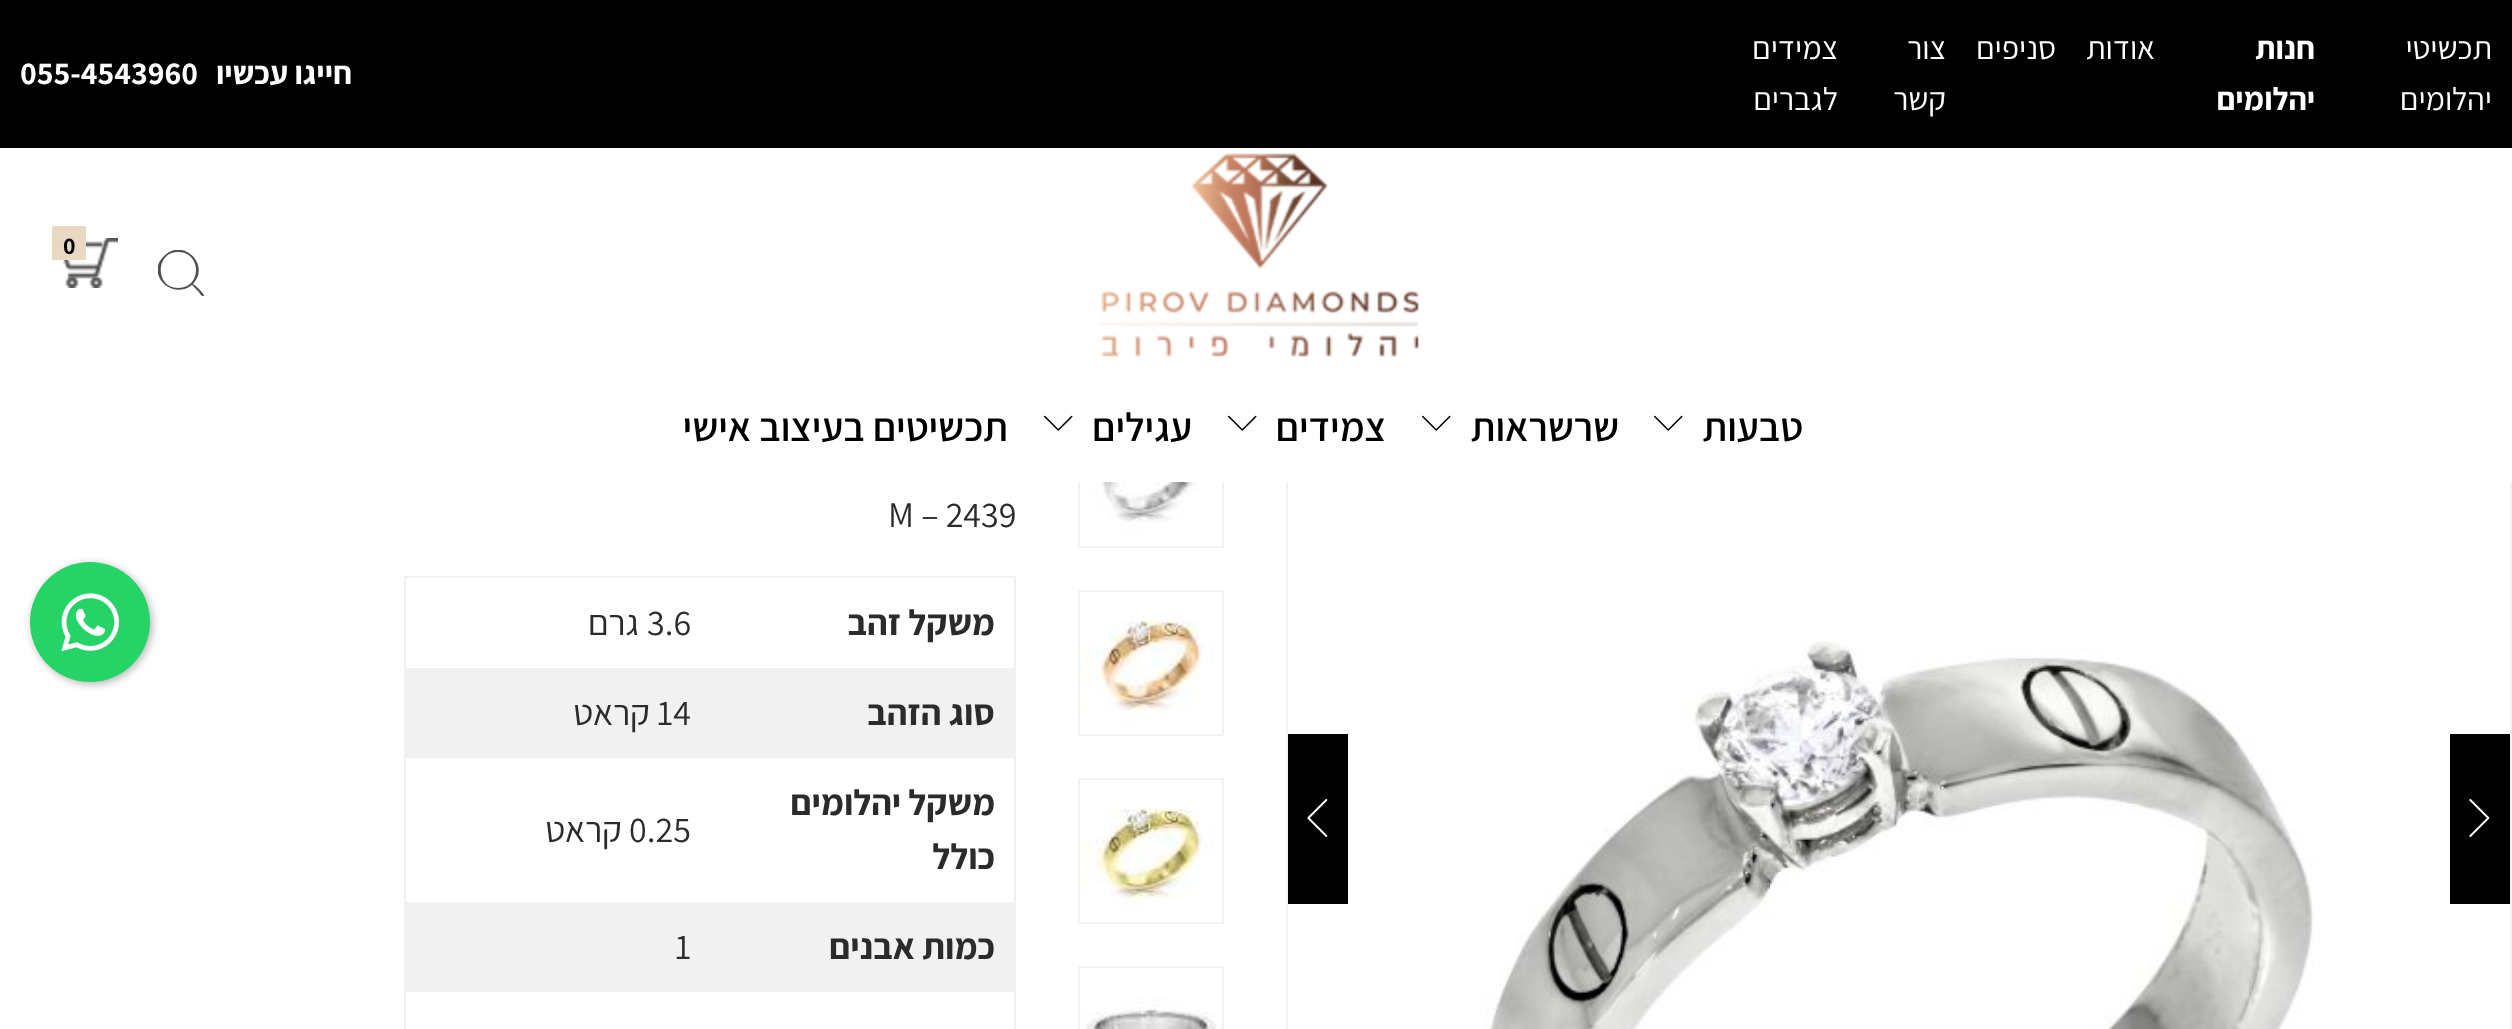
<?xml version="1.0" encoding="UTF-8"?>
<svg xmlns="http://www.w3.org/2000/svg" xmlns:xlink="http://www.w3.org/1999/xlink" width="2512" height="1029">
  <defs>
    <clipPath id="clip1"><rect x="158" y="250" width="48" height="46" /></clipPath>
  </defs>
  <rect width="100%" height="100%" fill="#ffffff" />
  <rect width="2512" height="148" fill="#000000" />
  <image x="1100" y="153" width="319" height="204" xlink:href="image1.png" />
  <image x="63" y="238" width="55" height="50" xlink:href="image2.png" />
  <rect x="52" y="226" width="34" height="34" fill="#e9d9c2" />
  <g clip-path="url(#clip1)">
    <path d="M 204 296 c -2 1 -5 -3 -5 -4 l -7 -7 c -20 16 -47 -11 -28 -29 c 19 -19 47 9 29 28 c 2 1 12 10 11 12 z m -26 -44 c -23 0 -23 36 0 36 c 24 0 24 -36 0 -36 z" fill="#505050" fill-rule="evenodd" />
  </g>
  <rect x="1287" y="389" width="1224" height="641" fill="none" stroke="#f2f2f2" stroke-width="2" />
  <rect x="1079" y="403" width="144" height="144" fill="none" stroke="#f2f2f2" stroke-width="2" />
  <rect x="1078" y="388" width="1434" height="94" fill="#ffffff" />
  <image x="1654" y="415" width="29" height="16" xlink:href="image3.png" />
  <image x="1422" y="415" width="29" height="16" xlink:href="image3.png" />
  <image x="1228" y="415" width="29" height="16" xlink:href="image3.png" />
  <image x="1044" y="415" width="29" height="16" xlink:href="image3.png" />
  <rect x="2450" y="734" width="60" height="170" fill="#000000" />
  <image x="2469" y="799" width="21" height="38" xlink:href="image4.png" />
  <image x="1485" y="640" width="829" height="389" xlink:href="image5.png" />
  <rect x="1288" y="734" width="60" height="170" fill="#000000" />
  <image x="1307" y="799" width="21" height="38" xlink:href="image6.png" />
  <image x="1080" y="482" width="142" height="64" xlink:href="image7.png" />
  <rect x="1079" y="591" width="144" height="144" fill="none" stroke="#f2f2f2" stroke-width="2" />
  <image x="1080" y="592" width="142" height="142" xlink:href="image8.png" />
  <rect x="1079" y="779" width="144" height="144" fill="none" stroke="#f2f2f2" stroke-width="2" />
  <image x="1080" y="780" width="142" height="142" xlink:href="image9.png" />
  <rect x="1079" y="967" width="144" height="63" fill="none" stroke="#f2f2f2" stroke-width="2" />
  <image x="1080" y="968" width="142" height="61" xlink:href="image10.png" />
  <rect x="404" y="576" width="612" height="2" fill="#f1f1f1" />
  <rect x="1014" y="576" width="2" height="453" fill="#f1f1f1" />
  <rect x="404" y="576" width="2" height="453" fill="#f1f1f1" />
  <rect x="406" y="668" width="608" height="90" fill="#f1f1f1" />
  <rect x="406" y="902" width="608" height="90" fill="#f1f1f1" />
  <rect x="32" y="564" width="120" height="120" rx="60" fill="#000000" fill-opacity="0.3" filter="blur(4px)" />
  <circle cx="90" cy="622" r="60" fill="#25d366" />
  <image x="61" y="593" width="58" height="59" xlink:href="image11.png" />
  <text x="2492" y="59" style="font-family: Assistant; font-size: 32px; direction: rtl; fill: #ffffff">תכשיטי</text>
  <text x="2492" y="110" style="font-family: Assistant; font-size: 32px; direction: rtl; fill: #ffffff">יהלומים</text>
  <text x="2315" y="59" style="font-family: Assistant; font-size: 32px; font-weight: bold; direction: rtl; fill: #ffffff">חנות</text>
  <text x="2315" y="110" style="font-family: Assistant; font-size: 32px; font-weight: bold; direction: rtl; fill: #ffffff">יהלומים</text>
  <text x="2155" y="59" style="font-family: Assistant; font-size: 32px; direction: rtl; fill: #ffffff">אודות</text>
  <text x="2056" y="59" style="font-family: Assistant; font-size: 32px; direction: rtl; fill: #ffffff">סניפים</text>
  <text x="1946" y="59" style="font-family: Assistant; font-size: 32px; direction: rtl; fill: #ffffff">צור</text>
  <text x="1946" y="110" style="font-family: Assistant; font-size: 32px; direction: rtl; fill: #ffffff">קשר</text>
  <text x="1838" y="59" style="font-family: Assistant; font-size: 32px; direction: rtl; fill: #ffffff">צמידים</text>
  <text x="1838" y="110" style="font-family: Assistant; font-size: 32px; direction: rtl; fill: #ffffff">לגברים</text>
  <text x="352" y="84" style="font-family: Assistant; font-size: 32px; font-weight: bold; direction: rtl; fill: #ffffff">חייגו עכשיו</text>
  <text x="20" y="84" style="font-family: Assistant; font-size: 32px; font-weight: bold; fill: #ffffff">055-4543960</text>
  <text x="63" y="254" style="font-family: Assistant; font-size: 24px; font-weight: bold; fill: #000000">0</text>
  <text x="1803" y="441" style="font-family: Assistant; font-size: 40px; font-weight: 600; direction: rtl; fill: #000000">טבעות</text>
  <text x="1619" y="441" style="font-family: Assistant; font-size: 40px; font-weight: 600; direction: rtl; fill: #000000">שרשראות</text>
  <text x="1386" y="441" style="font-family: Assistant; font-size: 40px; font-weight: 600; direction: rtl; fill: #000000">צמידים</text>
  <text x="1192" y="441" style="font-family: Assistant; font-size: 40px; font-weight: 600; direction: rtl; fill: #000000">עגילים</text>
  <text x="1008" y="441" style="font-family: Assistant; font-size: 40px; font-weight: 600; direction: rtl; fill: #000000">תכשיטים בעיצוב אישי</text>
  <text x="888" y="527" style="font-family: Assistant; font-size: 36px; fill: #2c2b2b">M – 2439</text>
  <text x="995" y="635" style="font-family: Assistant; font-size: 36px; font-weight: bold; direction: rtl; fill: #2c2b2b">משקל זהב</text>
  <text x="647" y="635" style="font-family: Assistant; font-size: 36px; fill: #2c2b2b">3.6</text>
  <text x="639" y="635" style="font-family: Assistant; font-size: 36px; direction: rtl; fill: #2c2b2b">גרם</text>
  <text x="995" y="725" style="font-family: Assistant; font-size: 36px; font-weight: bold; direction: rtl; fill: #2c2b2b">סוג הזהב</text>
  <text x="657" y="725" style="font-family: Assistant; font-size: 36px; fill: #2c2b2b">14</text>
  <text x="650" y="725" style="font-family: Assistant; font-size: 36px; direction: rtl; fill: #2c2b2b">קראט</text>
  <text x="995" y="815" style="font-family: Assistant; font-size: 36px; font-weight: bold; direction: rtl; fill: #2c2b2b">משקל יהלומים</text>
  <text x="995" y="869" style="font-family: Assistant; font-size: 36px; font-weight: bold; direction: rtl; fill: #2c2b2b">כולל</text>
  <text x="629" y="842" style="font-family: Assistant; font-size: 36px; fill: #2c2b2b">0.25</text>
  <text x="622" y="842" style="font-family: Assistant; font-size: 36px; direction: rtl; fill: #2c2b2b">קראט</text>
  <text x="995" y="959" style="font-family: Assistant; font-size: 36px; font-weight: bold; direction: rtl; fill: #2c2b2b">כמות אבנים</text>
  <text x="675" y="959" style="font-family: Assistant; font-size: 36px; fill: #2c2b2b">1</text>
</svg>
